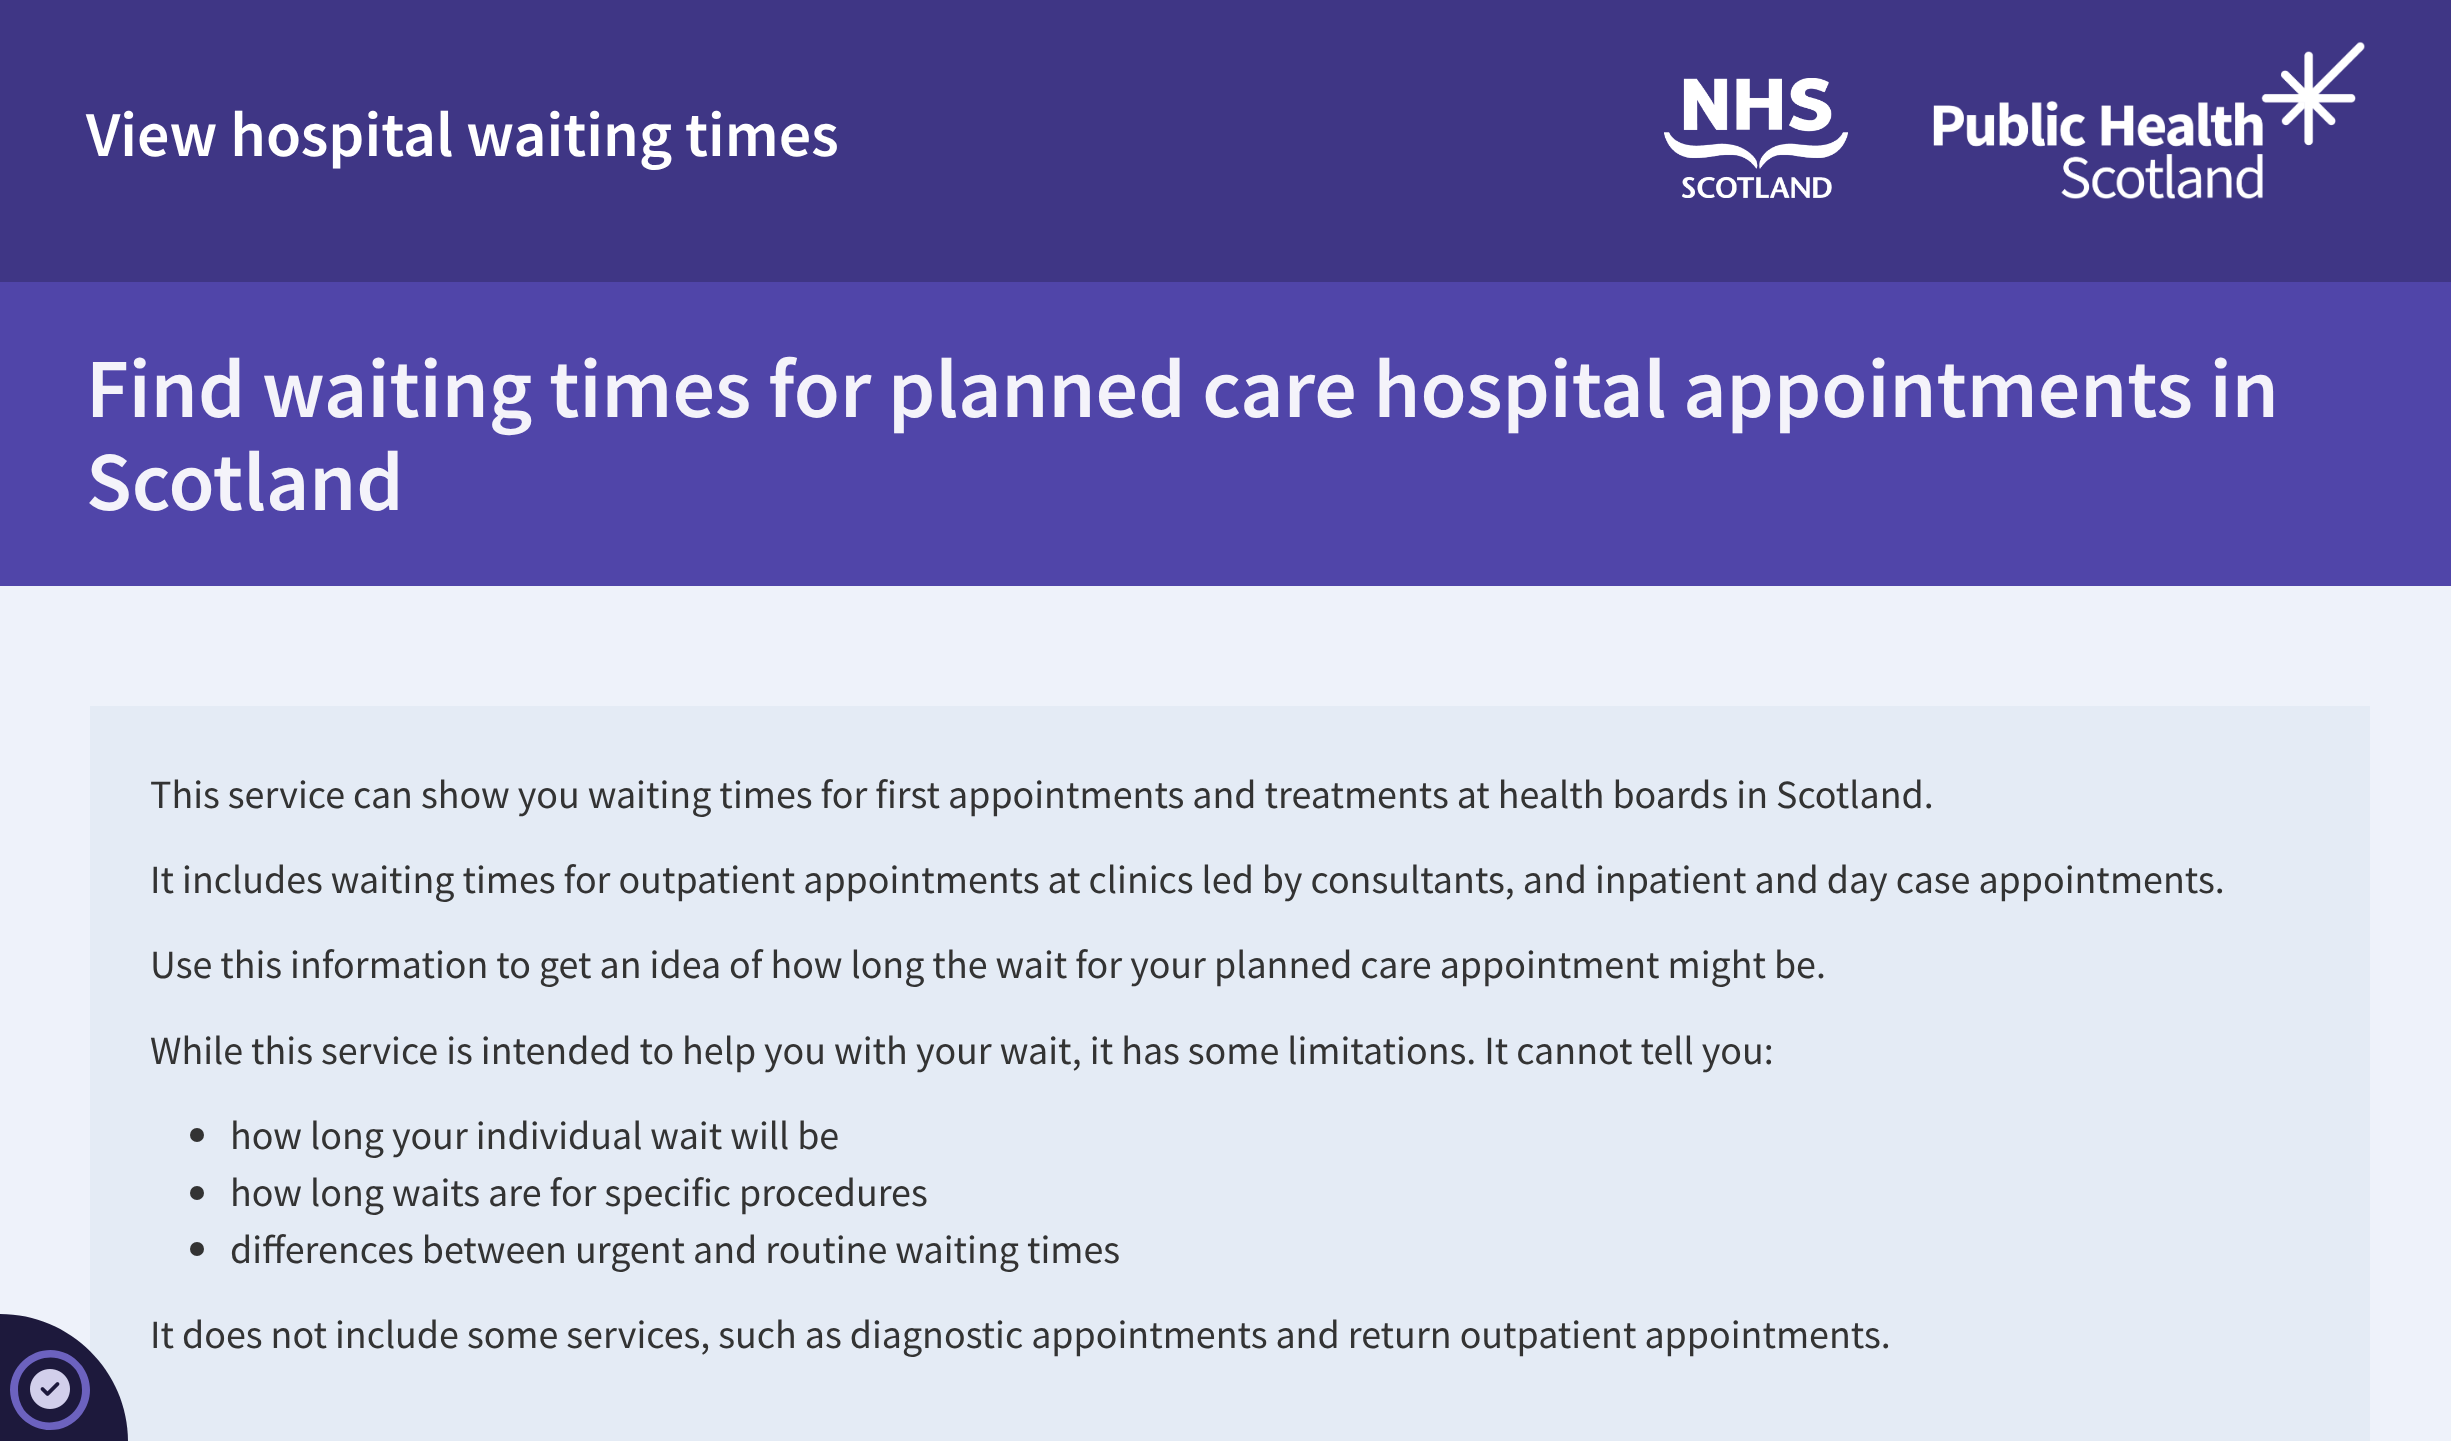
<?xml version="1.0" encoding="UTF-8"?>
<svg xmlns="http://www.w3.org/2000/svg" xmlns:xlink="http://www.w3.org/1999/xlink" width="2451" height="1441">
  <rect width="100%" height="100%" fill="#3f3685" />
  <image x="1664" y="78" width="184" height="120" xlink:href="image1.png" />
  <image x="1933" y="41" width="432" height="158" xlink:href="image2.png" />
  <rect y="586" width="2451" height="855" fill="#eef2fa" />
  <rect y="282" width="2451" height="304" fill="#5045a9" />
  <rect x="90" y="706" width="2280" height="735" fill="#e4ebf5" />
  <circle cx="197" cy="1135" r="7" fill="#333333" />
  <circle cx="197" cy="1193" r="7" fill="#333333" />
  <circle cx="197" cy="1249" r="7" fill="#333333" />
  <path d="M 0 1314 c 70.5 0 128 57.5 128 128 h -128 z" fill="#1d193c" />
  <path d="M 82 1390 c 0 -7 -2 -14 -6 -20 c -19 -24 -58 -11 -58 20 c 0 7 2 14 6 20 c 19 24 58 11 58 -20 z m -72 0 c 1 -38 48 -55 72 -24 c 5 7 8 15 8 24 c 0 9 -3 17 -8 24 c -24 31 -71 14 -72 -24 z" fill="#6c62bf" />
  <image x="30" y="1369" width="40" height="40" xlink:href="image3.png" />
  <text x="86" y="156" style="font-family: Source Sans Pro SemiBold; font-size: 64px; font-weight: 600; fill: #ffffff">View hospital waiting times</text>
  <text x="86" y="417" style="font-family: Source Sans Pro SemiBold; font-size: 84px; font-weight: 600; fill: #f4f3fa">Find waiting times for planned care hospital appointments in</text>
  <text x="86" y="510" style="font-family: Source Sans Pro SemiBold; font-size: 84px; font-weight: 600; fill: #f4f3fa">Scotland</text>
  <text x="150" y="808" style="font-family: Source Sans Pro; font-size: 40px; fill: #333333">This service can show you waiting times for first appointments and treatments at health boards in Scotland.</text>
  <text x="150" y="893" style="font-family: Source Sans Pro; font-size: 40px; fill: #333333">It includes waiting times for outpatient appointments at clinics led by consultants, and inpatient and day case appointments.</text>
  <text x="150" y="978" style="font-family: Source Sans Pro; font-size: 40px; fill: #333333">Use this information to get an idea of how long the wait for your planned care appointment might be.</text>
  <text x="150" y="1064" style="font-family: Source Sans Pro; font-size: 40px; fill: #333333">While this service is intended to help you with your wait, it has some limitations. It cannot tell you:</text>
  <text x="230" y="1149" style="font-family: Source Sans Pro; font-size: 40px; fill: #333333">how long your individual wait will be</text>
  <text x="230" y="1206" style="font-family: Source Sans Pro; font-size: 40px; fill: #333333">how long waits are for specific procedures</text>
  <text x="230" y="1263" style="font-family: Source Sans Pro; font-size: 40px; fill: #333333">differences between urgent and routine waiting times</text>
  <text x="150" y="1348" style="font-family: Source Sans Pro; font-size: 40px; fill: #333333">It does not include some services, such as diagnostic appointments and return outpatient appointments.</text>
</svg>
